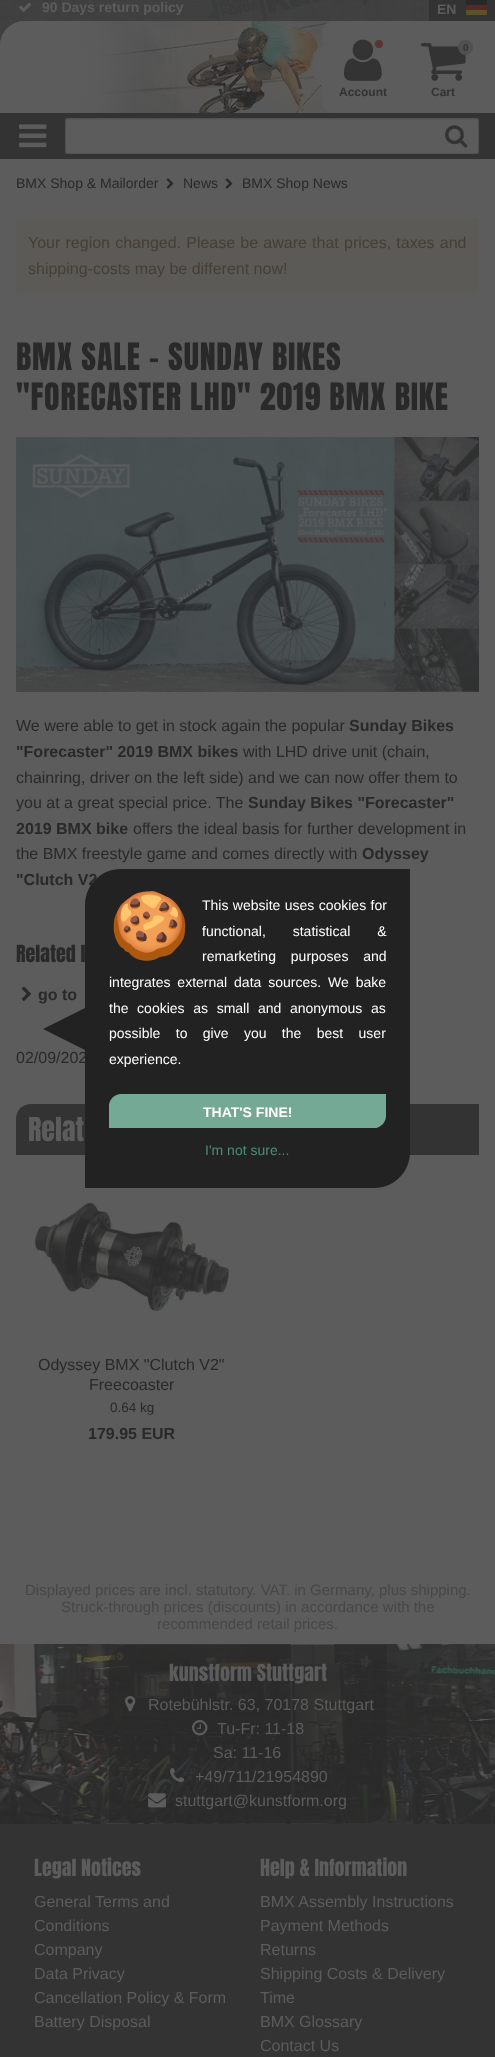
<?xml version="1.0" encoding="UTF-8"?>
<svg xmlns="http://www.w3.org/2000/svg" xmlns:xlink="http://www.w3.org/1999/xlink" width="495" height="2057">
  <defs>
    <clipPath id="clip1"><path d="M 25 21 h 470 v 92 h -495 v -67 c 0 -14 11 -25 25 -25 z" /></clipPath>
  </defs>
  <rect width="100%" height="100%" fill="#ffffff" />
  <image x="0" y="0" width="429" height="46" xlink:href="image1.png" />
  <image x="0" y="21" width="333" height="92" xlink:href="image3.png" />
  <g clip-path="url(#clip1)">
    <rect x="-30" y="-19" width="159" height="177" rx="65" fill="#5c5c5c" filter="blur(20px)" />
  </g>
  <image x="19" y="2" width="12" height="10" xlink:href="image2.png" />
  <rect x="429" width="66" height="21" fill="#333333" />
  <rect x="466" y="10" width="21" height="5" fill="#5c5229" />
  <rect x="466" width="21" height="5" fill="#292929" />
  <rect x="466" y="5" width="21" height="5" fill="#552929" />
  <path d="M 25 21 h 54 v 92 h -79 v -67 c 0 -14 11 -25 25 -25 z" fill="#5c5c5c" />
  <path d="M 333 21 h 162 v 92 h -162 c -5.5 0 -10 -4.5 -10 -10 v -72 c 0 -5.5 4.5 -10 10 -10 z" fill="#5c5c5c" />
  <path d="M 337 41 h 3 v 50 h -3 c -14 0 -25 -11 -25 -25 c 0 -14 11 -25 25 -25 z" fill="#5c5c5c" />
  <image x="344" y="39" width="38" height="42" xlink:href="image4.png" />
  <circle cx="379" cy="44" r="4" fill="#5c3333" />
  <image x="421" y="43" width="45" height="38" xlink:href="image5.png" />
  <circle cx="465.5" cy="47.5" r="7.5" fill="#505050" />
  <rect y="113" width="495" height="46" fill="#333333" />
  <image x="19" y="124" width="28" height="24" xlink:href="image6.png" />
  <rect x="65" y="118" width="414" height="36" rx="3" fill="#5c5c5c" />
  <path d="M 68 120 h 408 c 1 0 2 1 2 2 c 0 -1 0 -2 -1 -3 h -409 l -2 1 v 2 c 0 -1 1 -2 2 -2 z" fill="#585858" />
  <rect x="65.5" y="118.5" width="413" height="35" rx="2.5" fill="none" stroke="#292929" stroke-opacity="0.2" />
  <image x="445" y="125" width="23" height="23" xlink:href="image7.png" />
  <rect y="159" width="495" height="1485" fill="#5c5c5c" />
  <image x="166" y="178" width="8" height="11" xlink:href="image8.png" />
  <image x="225" y="178" width="8" height="11" xlink:href="image8.png" />
  <rect x="16" y="218" width="463" height="75" rx="4" fill="#5b5a56" />
  <image x="16" y="437" width="463" height="255" xlink:href="image9.png" />
  <image x="21" y="986" width="10" height="15" xlink:href="image10.png" />
  <path d="M 31 1104 h 448 v 51 h -463 v -36 c 0 -8.5 6.5 -15 15 -15 z" fill="#333333" />
  <image x="34" y="1202" width="196" height="110" xlink:href="image11.png" />
  <image x="0" y="1644" width="495" height="180" xlink:href="image12.png" />
  <path d="M 129 1645 h 258 v 158 c 0 11 -9 20 -20 20 h -258 v -158 c 0 -11 9 -20 20 -20 z" fill="#292929" fill-opacity="0.65" />
  <path d="M 109 1713 v 32 l -32 -16 z" fill="#292929" fill-opacity="0.65" />
  <image x="125" y="1696" width="11" height="16" xlink:href="image13.png" />
  <image x="192" y="1720" width="16" height="16" xlink:href="image14.png" />
  <image x="170" y="1768" width="15" height="15" xlink:href="image15.png" />
  <image x="148" y="1793" width="18" height="15" xlink:href="image16.png" />
  <rect y="1824" width="495" height="233" fill="#333333" />
  <path d="M 85 1008 v 42 l -42 -21 z" fill="#222222" />
  <text x="42" y="12" style="font-family: Liberation Sans; font-size: 14px; font-weight: bold; fill: #5c5c5c">90 Days return policy</text>
  <text x="437" y="14" style="font-family: Liberation Sans; font-size: 14px; font-weight: bold; fill: #5c5c5c">EN</text>
  <text x="339" y="96" style="font-family: Liberation Sans; font-size: 12px; font-weight: bold; fill: #333333">Account</text>
  <text x="463" y="51" style="font-family: Liberation Sans; font-size: 10px; font-weight: bold; fill: #333333">0</text>
  <text x="431" y="96" style="font-family: Liberation Sans; font-size: 12px; font-weight: bold; fill: #333333">Cart</text>
  <text x="16" y="188" style="font-family: Liberation Sans; font-size: 14px; fill: #292929">BMX Shop &amp; Mailorder</text>
  <text x="183" y="188" style="font-family: Liberation Sans; font-size: 14px; fill: #292929">News</text>
  <text x="242" y="188" style="font-family: Liberation Sans; font-size: 14px; fill: #292929">BMX Shop News</text>
  <text x="28" y="248" word-spacing="0.75" style="font-family: Liberation Sans; font-size: 16px; fill: #443f35">Your region changed. Please be aware that prices, taxes and</text>
  <text x="28" y="274" style="font-family: Liberation Sans; font-size: 16px; fill: #443f35">shipping-costs may be different now!</text>
  <text x="16" y="370" style="font-family: Anton; font-size: 32px; letter-spacing: 0.8px; fill: #292929">BMX SALE - SUNDAY BIKES</text>
  <text x="16" y="410" style="font-family: Anton; font-size: 32px; letter-spacing: 0.8px; fill: #292929">"FORECASTER LHD" 2019 BMX BIKE</text>
  <text x="16" y="731" style="font-family: Liberation Sans; font-size: 16px; fill: #292929">We were able to get in stock again the popular</text>
  <text x="349" y="731" style="font-family: Liberation Sans; font-size: 16px; font-weight: bold; fill: #292929">Sunday Bikes</text>
  <text x="16" y="757" style="font-family: Liberation Sans; font-size: 16px; font-weight: bold; fill: #292929">"Forecaster" 2019 BMX bikes</text>
  <text x="243" y="757" style="font-family: Liberation Sans; font-size: 16px; fill: #292929">with LHD drive unit (chain,</text>
  <text x="16" y="783" style="font-family: Liberation Sans; font-size: 16px; fill: #292929">chainring, driver on the left side) and we can now offer them to</text>
  <text x="16" y="808" style="font-family: Liberation Sans; font-size: 16px; fill: #292929">you at a great special price. The</text>
  <text x="248" y="808" style="font-family: Liberation Sans; font-size: 16px; font-weight: bold; fill: #292929">Sunday Bikes "Forecaster"</text>
  <text x="16" y="834" style="font-family: Liberation Sans; font-size: 16px; font-weight: bold; fill: #292929">2019 BMX bike</text>
  <text x="133" y="834" style="font-family: Liberation Sans; font-size: 16px; fill: #292929">offers the ideal basis for further development in</text>
  <text x="16" y="859" style="font-family: Liberation Sans; font-size: 16px; fill: #292929">the BMX freestyle game and comes directly with</text>
  <text x="362" y="859" style="font-family: Liberation Sans; font-size: 16px; font-weight: bold; fill: #292929">Odyssey</text>
  <text x="16" y="885" style="font-family: Liberation Sans; font-size: 16px; font-weight: bold; fill: #292929">"Clutch V2</text>
  <text x="16" y="962" style="font-family: Anton; font-size: 20px; fill: #292929">Related l</text>
  <text x="38" y="1000" style="font-family: Liberation Sans; font-size: 16px; font-weight: bold; fill: #292929">go to</text>
  <text x="16" y="1063" style="font-family: Liberation Sans; font-size: 16px; fill: #292929">02/09/202</text>
  <text x="28" y="1141" style="font-family: Anton; font-size: 28px; fill: #5c5c5c">Relat</text>
  <text x="38" y="1370" style="font-family: Liberation Sans; font-size: 16px; fill: #292929">Odyssey BMX "Clutch V2"</text>
  <text x="89" y="1390" style="font-family: Liberation Sans; font-size: 16px; fill: #292929">Freecoaster</text>
  <text x="110" y="1412" style="font-family: Liberation Sans; font-size: 13.5px; fill: #292929">0.64 kg</text>
  <text x="88" y="1439" style="font-family: Liberation Sans; font-size: 16px; font-weight: bold; fill: #292929">179.95 EUR</text>
  <text x="25" y="1595" style="font-family: Liberation Sans; font-size: 15px; fill: #474747">Displayed prices are incl. statutory. VAT. in Germany, plus shipping.</text>
  <text x="61" y="1612" style="font-family: Liberation Sans; font-size: 15px; fill: #474747">Struck-through prices (discounts) in accordance with the</text>
  <text x="157" y="1629" style="font-family: Liberation Sans; font-size: 15px; fill: #474747">recommended retail prices.</text>
  <text x="169" y="1681" style="font-family: Anton; font-size: 20px; fill: #5c5c5c">kunstform Stuttgart</text>
  <text x="148" y="1710" style="font-family: Liberation Sans; font-size: 16px; fill: #5c5c5c">Rotebühlstr. 63, 70178 Stuttgart</text>
  <text x="217" y="1734" style="font-family: Liberation Sans; font-size: 16px; fill: #5c5c5c">Tu-Fr: 11-18</text>
  <text x="213" y="1758" style="font-family: Liberation Sans; font-size: 16px; fill: #5c5c5c">Sa: 11-16</text>
  <text x="195" y="1782" style="font-family: Liberation Sans; font-size: 16px; fill: #5c5c5c">+49/711/21954890</text>
  <text x="175" y="1806" style="font-family: Liberation Sans; font-size: 16px; fill: #5c5c5c">stuttgart@kunstform.org</text>
  <text x="34" y="1876" style="font-family: Anton; font-size: 20px; fill: #5c5c5c">Legal Notices</text>
  <text x="34" y="1907" style="font-family: Liberation Sans; font-size: 16px; fill: #5c5c5c">General Terms and</text>
  <text x="34" y="1931" style="font-family: Liberation Sans; font-size: 16px; fill: #5c5c5c">Conditions</text>
  <text x="34" y="1955" style="font-family: Liberation Sans; font-size: 16px; fill: #5c5c5c">Company</text>
  <text x="34" y="1979" style="font-family: Liberation Sans; font-size: 16px; fill: #5c5c5c">Data Privacy</text>
  <text x="34" y="2003" style="font-family: Liberation Sans; font-size: 16px; fill: #5c5c5c">Cancellation Policy &amp; Form</text>
  <text x="34" y="2027" style="font-family: Liberation Sans; font-size: 16px; fill: #5c5c5c">Battery Disposal</text>
  <text x="260" y="1876" style="font-family: Anton; font-size: 20px; fill: #5c5c5c">Help &amp; Information</text>
  <text x="260" y="1907" style="font-family: Liberation Sans; font-size: 16px; fill: #5c5c5c">BMX Assembly Instructions</text>
  <text x="260" y="1931" style="font-family: Liberation Sans; font-size: 16px; fill: #5c5c5c">Payment Methods</text>
  <text x="260" y="1955" style="font-family: Liberation Sans; font-size: 16px; fill: #5c5c5c">Returns</text>
  <text x="260" y="1979" style="font-family: Liberation Sans; font-size: 16px; fill: #5c5c5c">Shipping Costs &amp; Delivery</text>
  <text x="260" y="2003" style="font-family: Liberation Sans; font-size: 16px; fill: #5c5c5c">Time</text>
  <text x="260" y="2027" style="font-family: Liberation Sans; font-size: 16px; fill: #5c5c5c">BMX Glossary</text>
  <text x="260" y="2051" style="font-family: Liberation Sans; font-size: 16px; fill: #5c5c5c">Contact Us</text>
  <path d="M 121 869 h 289 v 283 c 0 20 -16 36 -36 36 h -289 v -283 c 0 -20 16 -36 36 -36 z" fill="#222222" />
  <text x="109" y="948" style="font-family: Noto Color Emoji; font-size: 65px; fill: #000000">🍪</text>
  <text x="202" y="910" word-spacing="0.5" style="font-family: Liberation Sans; font-size: 14px; fill: #ffffff">This website uses cookies for</text>
  <text x="202" y="936" word-spacing="23" style="font-family: Liberation Sans; font-size: 14px; fill: #ffffff">functional, statistical &amp;</text>
  <text x="202" y="961" word-spacing="11" style="font-family: Liberation Sans; font-size: 14px; fill: #ffffff">remarketing purposes and</text>
  <text x="109" y="987" word-spacing="3" style="font-family: Liberation Sans; font-size: 14px; fill: #ffffff">integrates external data sources. We bake</text>
  <text x="109" y="1013" word-spacing="4.75" style="font-family: Liberation Sans; font-size: 14px; fill: #ffffff">the cookies as small and anonymous as</text>
  <text x="109" y="1038" word-spacing="11.5" style="font-family: Liberation Sans; font-size: 14px; fill: #ffffff">possible to give you the best user</text>
  <text x="109" y="1064" style="font-family: Liberation Sans; font-size: 14px; fill: #ffffff">experience.</text>
  <path d="M 121 1096.5 h 262.5 v 19.5 c 0 5 -4.5 9.5 -9.5 9.5 h -262.5 v -19.5 c 0 -5 4.5 -9.5 9.5 -9.5 z" fill="#74a995" stroke="#74a995" stroke-width="5" />
  <text x="203" y="1117" style="font-family: Liberation Sans; font-size: 14px; font-weight: bold; fill: #ffffff">THAT'S FINE!</text>
  <text x="205" y="1155" style="font-family: Liberation Sans; font-size: 14px; fill: #4c8e75">I'm not sure...</text>
</svg>
